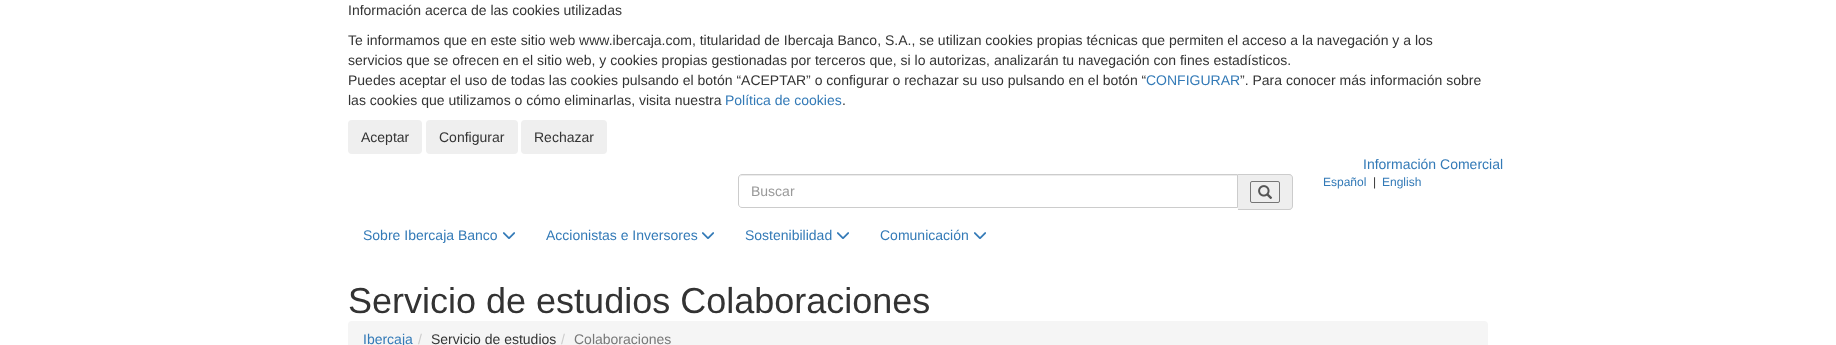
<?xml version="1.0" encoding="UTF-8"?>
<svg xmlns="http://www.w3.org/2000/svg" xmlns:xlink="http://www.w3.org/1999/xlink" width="1836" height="345">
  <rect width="100%" height="100%" fill="#ffffff" />
  <rect x="348" y="120" width="74" height="34" rx="4" fill="#efefef" />
  <rect x="426" y="120" width="92" height="34" rx="4" fill="#efefef" />
  <rect x="521" y="120" width="86" height="34" rx="4" fill="#efefef" />
  <path d="M 742 176 h 495 v -1 h -495 c -2 0 -3 2 -3 4 c 0 -2 1 -3 3 -3 z" fill="#ececec" />
  <path d="M 742 174.5 h 495.5 v 33 h -495.5 c -2 0 -3.5 -1.5 -3.5 -3.5 v -26 c 0 -2 1.5 -3.5 3.5 -3.5 z" fill="none" stroke="#cccccc" />
  <path d="M 1238 174 h 51 c 2 0 4 2 4 4 v 28 c 0 2 -2 4 -4 4 h -51 z" fill="#eeeeee" />
  <path d="M 1238 174 h 51 c 2 0 4 2 4 4 v 28 c 0 2 -2 4 -4 4 h -51 z m 0 1 h 51 c 2 0 3 1 3 3 v 28 c 0 2 -1 3 -3 3 h -51 z" fill="#cccccc" fill-rule="evenodd" />
  <rect x="1250.5" y="181.5" width="29" height="21" rx="1.5" fill="none" stroke="#767676" />
  <image x="1258" y="185" width="15" height="14" xlink:href="image1.png" />
  <image x="503" y="232" width="12" height="7" xlink:href="image2.png" />
  <image x="702" y="232" width="12" height="7" xlink:href="image2.png" />
  <image x="837" y="232" width="12" height="7" xlink:href="image2.png" />
  <image x="974" y="232" width="12" height="7" xlink:href="image2.png" />
  <rect x="348" y="321" width="1140" height="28" rx="4" fill="#f5f5f5" />
  <text x="348" y="15" style="font-family: Liberation Sans; font-size: 14px; fill: #333333">Información acerca de las cookies utilizadas</text>
  <text x="348" y="45" style="font-family: Liberation Sans; font-size: 14px; fill: #333333">Te informamos que en este sitio web www.ibercaja.com, titularidad de Ibercaja Banco, S.A., se utilizan cookies propias técnicas que permiten el acceso a la navegación y a los</text>
  <text x="348" y="65" style="font-family: Liberation Sans; font-size: 14px; fill: #333333">servicios que se ofrecen en el sitio web, y cookies propias gestionadas por terceros que, si lo autorizas, analizarán tu navegación con fines estadísticos.</text>
  <text x="348" y="85" style="font-family: Liberation Sans; font-size: 14px; fill: #333333">Puedes aceptar el uso de todas las cookies pulsando el botón “ACEPTAR” o configurar o rechazar su uso pulsando en el botón “</text>
  <text x="1146" y="85" style="font-family: Liberation Sans; font-size: 14px; fill: #337ab7">CONFIGURAR</text>
  <text x="1240" y="85" style="font-family: Liberation Sans; font-size: 14px; fill: #333333">”. Para conocer más información sobre</text>
  <text x="348" y="105" style="font-family: Liberation Sans; font-size: 14px; fill: #333333">las cookies que utilizamos o cómo eliminarlas, visita nuestra</text>
  <text x="725" y="105" style="font-family: Liberation Sans; font-size: 14px; fill: #337ab7">Política de cookies</text>
  <text x="842" y="105" style="font-family: Liberation Sans; font-size: 14px; fill: #333333">.</text>
  <text x="361" y="142" style="font-family: Liberation Sans; font-size: 14px; fill: #333333">Aceptar</text>
  <text x="439" y="142" style="font-family: Liberation Sans; font-size: 14px; fill: #333333">Configurar</text>
  <text x="534" y="142" style="font-family: Liberation Sans; font-size: 14px; fill: #333333">Rechazar</text>
  <text x="1363" y="169" style="font-family: Liberation Sans; font-size: 14px; fill: #337ab7">Información Comercial</text>
  <text x="1323" y="186" style="font-family: Liberation Sans; font-size: 12px; fill: #337ab7">Español</text>
  <text x="1373" y="186" style="font-family: Liberation Sans; font-size: 12px; fill: #333333">|</text>
  <text x="1382" y="186" style="font-family: Liberation Sans; font-size: 12px; fill: #337ab7">English</text>
  <text x="751" y="196" style="font-family: Liberation Sans; font-size: 14px; fill: #999999">Buscar</text>
  <text x="363" y="240" style="font-family: Liberation Sans; font-size: 14px; fill: #337ab7">Sobre Ibercaja Banco</text>
  <text x="546" y="240" style="font-family: Liberation Sans; font-size: 14px; fill: #337ab7">Accionistas e Inversores</text>
  <text x="745" y="240" style="font-family: Liberation Sans; font-size: 14px; fill: #337ab7">Sostenibilidad</text>
  <text x="880" y="240" style="font-family: Liberation Sans; font-size: 14px; fill: #337ab7">Comunicación</text>
  <text x="348" y="313" style="font-family: Liberation Sans; font-size: 36px; fill: #333333">Servicio de estudios Colaboraciones</text>
  <text x="363" y="344" style="font-family: Liberation Sans; font-size: 14px; fill: #337ab7">Ibercaja</text>
  <text x="418" y="344" style="font-family: Liberation Sans; font-size: 14px; fill: #cccccc">/</text>
  <text x="431" y="344" style="font-family: Liberation Sans; font-size: 14px; fill: #333333">Servicio de estudios</text>
  <text x="561" y="344" style="font-family: Liberation Sans; font-size: 14px; fill: #cccccc">/</text>
  <text x="574" y="344" style="font-family: Liberation Sans; font-size: 14px; fill: #777777">Colaboraciones</text>
</svg>
